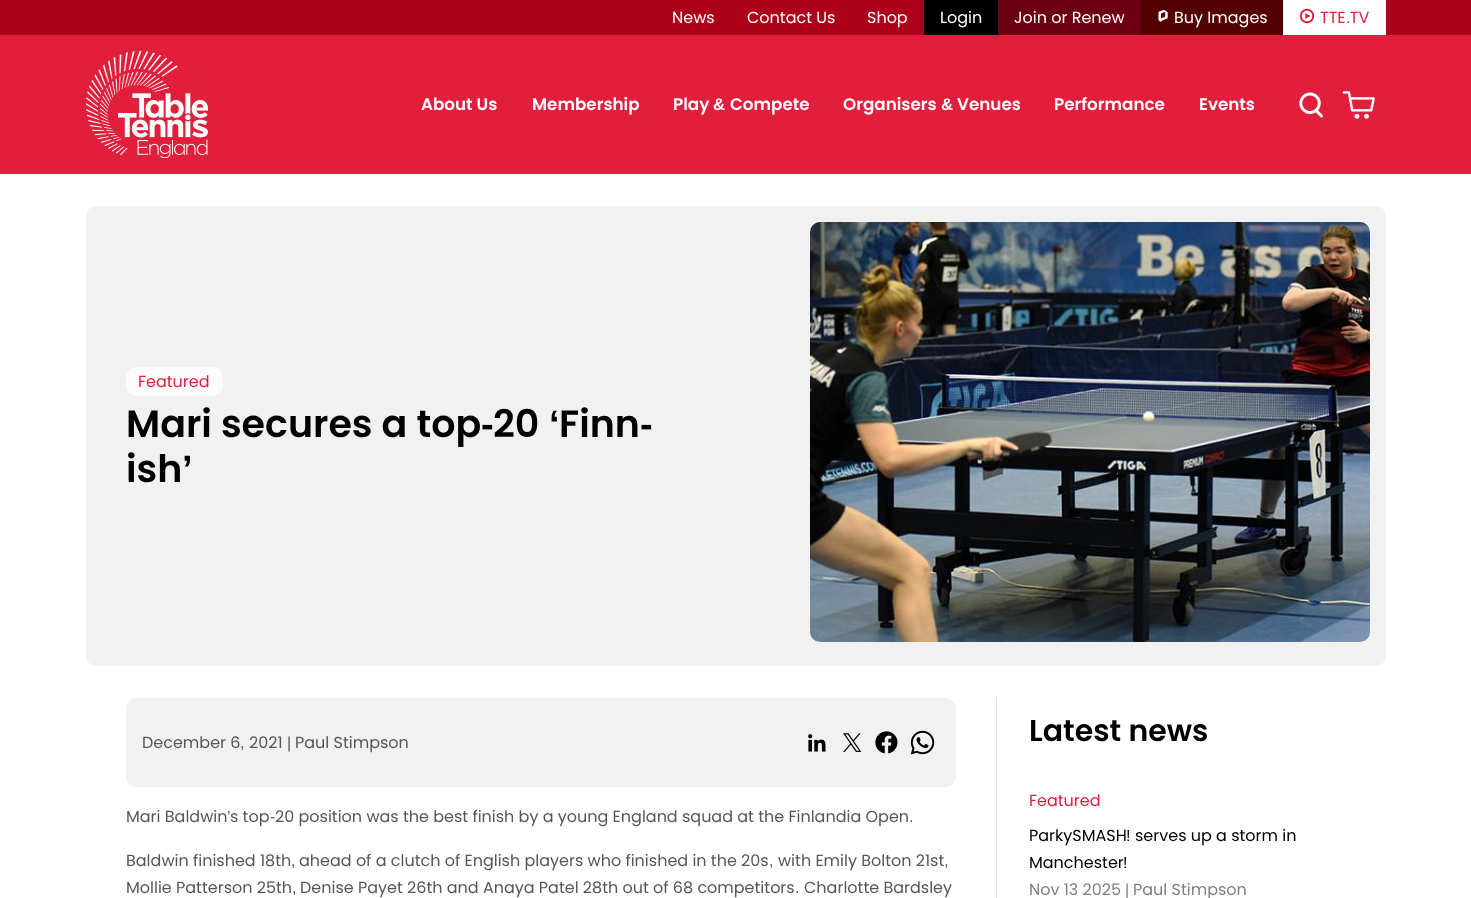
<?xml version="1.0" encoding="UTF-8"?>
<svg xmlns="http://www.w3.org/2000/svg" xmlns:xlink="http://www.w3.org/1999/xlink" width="1471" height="898">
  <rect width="100%" height="100%" fill="#ffffff" />
  <rect width="1471" height="35" fill="#ad001a" />
  <rect x="924" width="74" height="35" fill="#000000" />
  <rect x="998" width="143" height="35" fill="#6c0010" />
  <rect x="1141" width="142" height="35" fill="#520000" />
  <image x="1158" y="9" width="10" height="13" xlink:href="image1.png" />
  <rect x="1283" width="103" height="35" fill="#ffffff" />
  <image x="1299" y="8" width="16" height="16" xlink:href="image2.png" />
  <rect y="35" width="1471" height="139" fill="#e11f3c" />
  <image x="86" y="51" width="122" height="107" xlink:href="image3.png" />
  <image x="1299" y="92" width="24" height="26" xlink:href="image4.png" />
  <image x="1342" y="91" width="33" height="28" xlink:href="image5.png" />
  <rect x="86" y="206" width="1300" height="460" rx="10" fill="#f1f1f1" />
  <rect x="126" y="367" width="97" height="29" rx="10" fill="#fcfcfc" />
  <image x="810" y="222" width="560" height="420" xlink:href="image6.png" />
  <rect x="126" y="698" width="830" height="89" rx="10" fill="#f1f1f1" />
  <image x="808" y="734" width="18" height="18" xlink:href="image7.png" />
  <image x="843" y="733" width="19" height="19" xlink:href="image8.png" />
  <image x="875" y="731" width="23" height="23" xlink:href="image9.png" />
  <image x="910" y="730" width="25" height="25" xlink:href="image10.png" />
  <rect x="996" y="698" width="1" height="200" fill="#e0e0e0" />
  <text x="672" y="23" style="font-family: Poppins; font-size: 16px; fill: #ffffff">News</text>
  <text x="747" y="23" style="font-family: Poppins; font-size: 16px; fill: #ffffff">Contact Us</text>
  <text x="867" y="23" style="font-family: Poppins; font-size: 16px; fill: #ffffff">Shop</text>
  <text x="940" y="23" style="font-family: Poppins; font-size: 16px; fill: #ffffff">Login</text>
  <text x="1014" y="23" style="font-family: Poppins; font-size: 16px; fill: #ffffff">Join or Renew</text>
  <text x="1174" y="23" style="font-family: Poppins; font-size: 16px; fill: #ffffff">Buy Images</text>
  <text x="1320" y="23" style="font-family: Poppins; font-size: 16px; fill: #e11f3c">TTE TV</text>
  <text x="1346" y="23" style="font-family: Liberation Sans; font-size: 16px; fill: #e11f3c">.</text>
  <text x="421" y="110" style="font-family: Poppins; font-size: 16.75px; font-weight: 600; fill: #ffffff">About Us</text>
  <text x="532" y="110" style="font-family: Poppins; font-size: 16.75px; font-weight: 600; fill: #ffffff">Membership</text>
  <text x="673" y="110" style="font-family: Poppins; font-size: 16.75px; font-weight: 600; fill: #ffffff">Play</text>
  <text x="713" y="110" style="font-family: Liberation Sans; font-size: 16.75px; font-weight: bold; fill: #ffffff">&amp;</text>
  <text x="730" y="110" style="font-family: Poppins; font-size: 16.75px; font-weight: 600; fill: #ffffff">Compete</text>
  <text x="843" y="110" style="font-family: Poppins; font-size: 16.75px; font-weight: 600; fill: #ffffff">Organisers</text>
  <text x="941" y="110" style="font-family: Liberation Sans; font-size: 16.75px; font-weight: bold; fill: #ffffff">&amp;</text>
  <text x="957" y="110" style="font-family: Poppins; font-size: 16.75px; font-weight: 600; fill: #ffffff">Venues</text>
  <text x="1054" y="110" style="font-family: Poppins; font-size: 16.75px; font-weight: 600; fill: #ffffff">Performance</text>
  <text x="1199" y="110" style="font-family: Poppins; font-size: 16.75px; font-weight: 600; fill: #ffffff">Events</text>
  <text x="138" y="387" style="font-family: Poppins; font-size: 16px; fill: #e11f3c">Featured</text>
  <text x="126" y="437" style="font-family: Poppins; font-size: 38px; font-weight: 600; fill: #000000">Mari secures a top</text>
  <text x="493" y="437" style="font-family: Poppins; font-size: 38px; font-weight: 600; fill: #000000">20</text>
  <text x="549" y="437" style="font-family: Liberation Sans; font-size: 38px; font-weight: bold; fill: #000000">‘</text>
  <text x="559" y="437" style="font-family: Poppins; font-size: 38px; font-weight: 600; fill: #000000">Finn</text>
  <text x="481" y="437" style="font-family: Liberation Sans; font-size: 38px; font-weight: bold; fill: #000000">-</text>
  <text x="640" y="437" style="font-family: Liberation Sans; font-size: 38px; font-weight: bold; fill: #000000">-</text>
  <text x="126" y="482" style="font-family: Poppins; font-size: 38px; font-weight: 600; fill: #000000">ish</text>
  <text x="182" y="482" style="font-family: Liberation Sans; font-size: 38px; font-weight: bold; fill: #000000">’</text>
  <text x="142" y="748" style="font-family: Poppins; font-size: 16px; fill: #575756">December 6</text>
  <text x="240" y="748" style="font-family: Liberation Sans; font-size: 16px; fill: #575756">,</text>
  <text x="249" y="748" style="font-family: Poppins; font-size: 16px; fill: #575756">2021</text>
  <text x="287" y="748" style="font-family: Liberation Sans; font-size: 16px; fill: #575756">|</text>
  <text x="295" y="748" style="font-family: Poppins; font-size: 16px; fill: #575756">Paul Stimpson</text>
  <text x="126" y="822" style="font-family: Poppins; font-size: 16px; fill: #575756">Mari Baldwin</text>
  <text x="227" y="822" style="font-family: Liberation Sans; font-size: 16px; fill: #575756">’</text>
  <text x="230" y="822" style="font-family: Poppins; font-size: 16px; fill: #575756">s top</text>
  <text x="270" y="822" style="font-family: Liberation Sans; font-size: 16px; fill: #575756">-</text>
  <text x="275" y="822" style="font-family: Poppins; font-size: 16px; fill: #575756">20 position was the best finish by a young England squad at the Finlandia Open</text>
  <text x="909" y="822" style="font-family: Liberation Sans; font-size: 16px; fill: #575756">.</text>
  <text x="126" y="866" style="font-family: Poppins; font-size: 16px; fill: #575756">Baldwin finished 18th</text>
  <text x="291" y="866" style="font-family: Liberation Sans; font-size: 16px; fill: #575756">,</text>
  <text x="299" y="866" style="font-family: Poppins; font-size: 16px; fill: #575756">ahead of a clutch of English players who finished in the 20s</text>
  <text x="769" y="866" style="font-family: Liberation Sans; font-size: 16px; fill: #575756">,</text>
  <text x="778" y="866" style="font-family: Poppins; font-size: 16px; fill: #575756">with Emily Bolton 21st</text>
  <text x="944" y="866" style="font-family: Liberation Sans; font-size: 16px; fill: #575756">,</text>
  <text x="126" y="893" style="font-family: Poppins; font-size: 16px; fill: #575756">Mollie Patterson 25th</text>
  <text x="292" y="893" style="font-family: Liberation Sans; font-size: 16px; fill: #575756">,</text>
  <text x="300" y="893" style="font-family: Poppins; font-size: 16px; fill: #575756">Denise Payet 26th and Anaya Patel 28th out of 68 competitors</text>
  <text x="795" y="893" style="font-family: Liberation Sans; font-size: 16px; fill: #575756">.</text>
  <text x="804" y="893" style="font-family: Poppins; font-size: 16px; fill: #575756">Charlotte Bardsley</text>
  <text x="1029" y="741" style="font-family: Poppins; font-size: 30px; font-weight: 600; fill: #000000">Latest news</text>
  <text x="1029" y="806" style="font-family: Poppins; font-size: 16px; fill: #e11f3c">Featured</text>
  <text x="1029" y="841" style="font-family: Poppins; font-size: 16px; fill: #000000">ParkySMASH</text>
  <text x="1126" y="841" style="font-family: Liberation Sans; font-size: 16px; fill: #000000">!</text>
  <text x="1135" y="841" style="font-family: Poppins; font-size: 16px; fill: #000000">serves up a storm in</text>
  <text x="1029" y="868" style="font-family: Poppins; font-size: 16px; fill: #000000">Manchester</text>
  <text x="1123" y="868" style="font-family: Liberation Sans; font-size: 16px; fill: #000000">!</text>
  <text x="1029" y="895" style="font-family: Poppins; font-size: 16px; fill: #808080">Nov 13 2025</text>
  <text x="1125" y="895" style="font-family: Liberation Sans; font-size: 16px; fill: #808080">|</text>
  <text x="1133" y="895" style="font-family: Poppins; font-size: 16px; fill: #808080">Paul Stimpson</text>
</svg>
